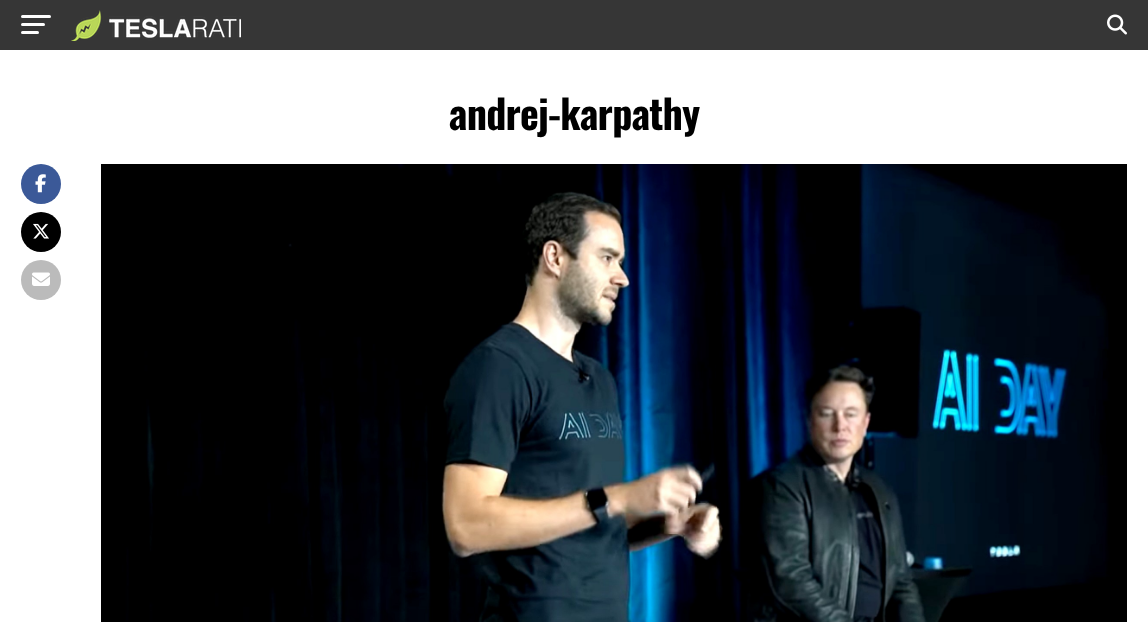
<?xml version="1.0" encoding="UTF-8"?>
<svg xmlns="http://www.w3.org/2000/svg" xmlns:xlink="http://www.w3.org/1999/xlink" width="1148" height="622">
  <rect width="100%" height="100%" fill="#ffffff" />
  <rect width="1148" height="50" fill="#363636" />
  <rect x="21" y="15" width="30" height="3" rx="1.5" fill="#ffffff" />
  <rect x="21" y="23" width="24" height="3" rx="1.5" fill="#ffffff" />
  <rect x="21" y="31" width="18" height="3" rx="1.5" fill="#ffffff" />
  <image x="71" y="10" width="170" height="31" xlink:href="image1.png" />
  <image x="1107" y="14" width="20" height="21" xlink:href="image2.png" />
  <circle cx="41" cy="184" r="20" fill="#3b5998" />
  <image x="35" y="174" width="11" height="19" xlink:href="image3.png" />
  <circle cx="41" cy="232" r="20" fill="#000000" />
  <image x="33" y="223" width="16" height="16" xlink:href="image4.png" />
  <circle cx="41" cy="280" r="20" fill="#bbbbbb" />
  <image x="32" y="272" width="18" height="14" xlink:href="image5.png" />
  <image x="101" y="164" width="1026" height="458" xlink:href="image6.png" />
  <text x="449" y="130" style="font-family: Oswald; font-size: 40px; font-weight: bold; letter-spacing: -0.75px; fill: #000000">andrej-karpathy</text>
</svg>
